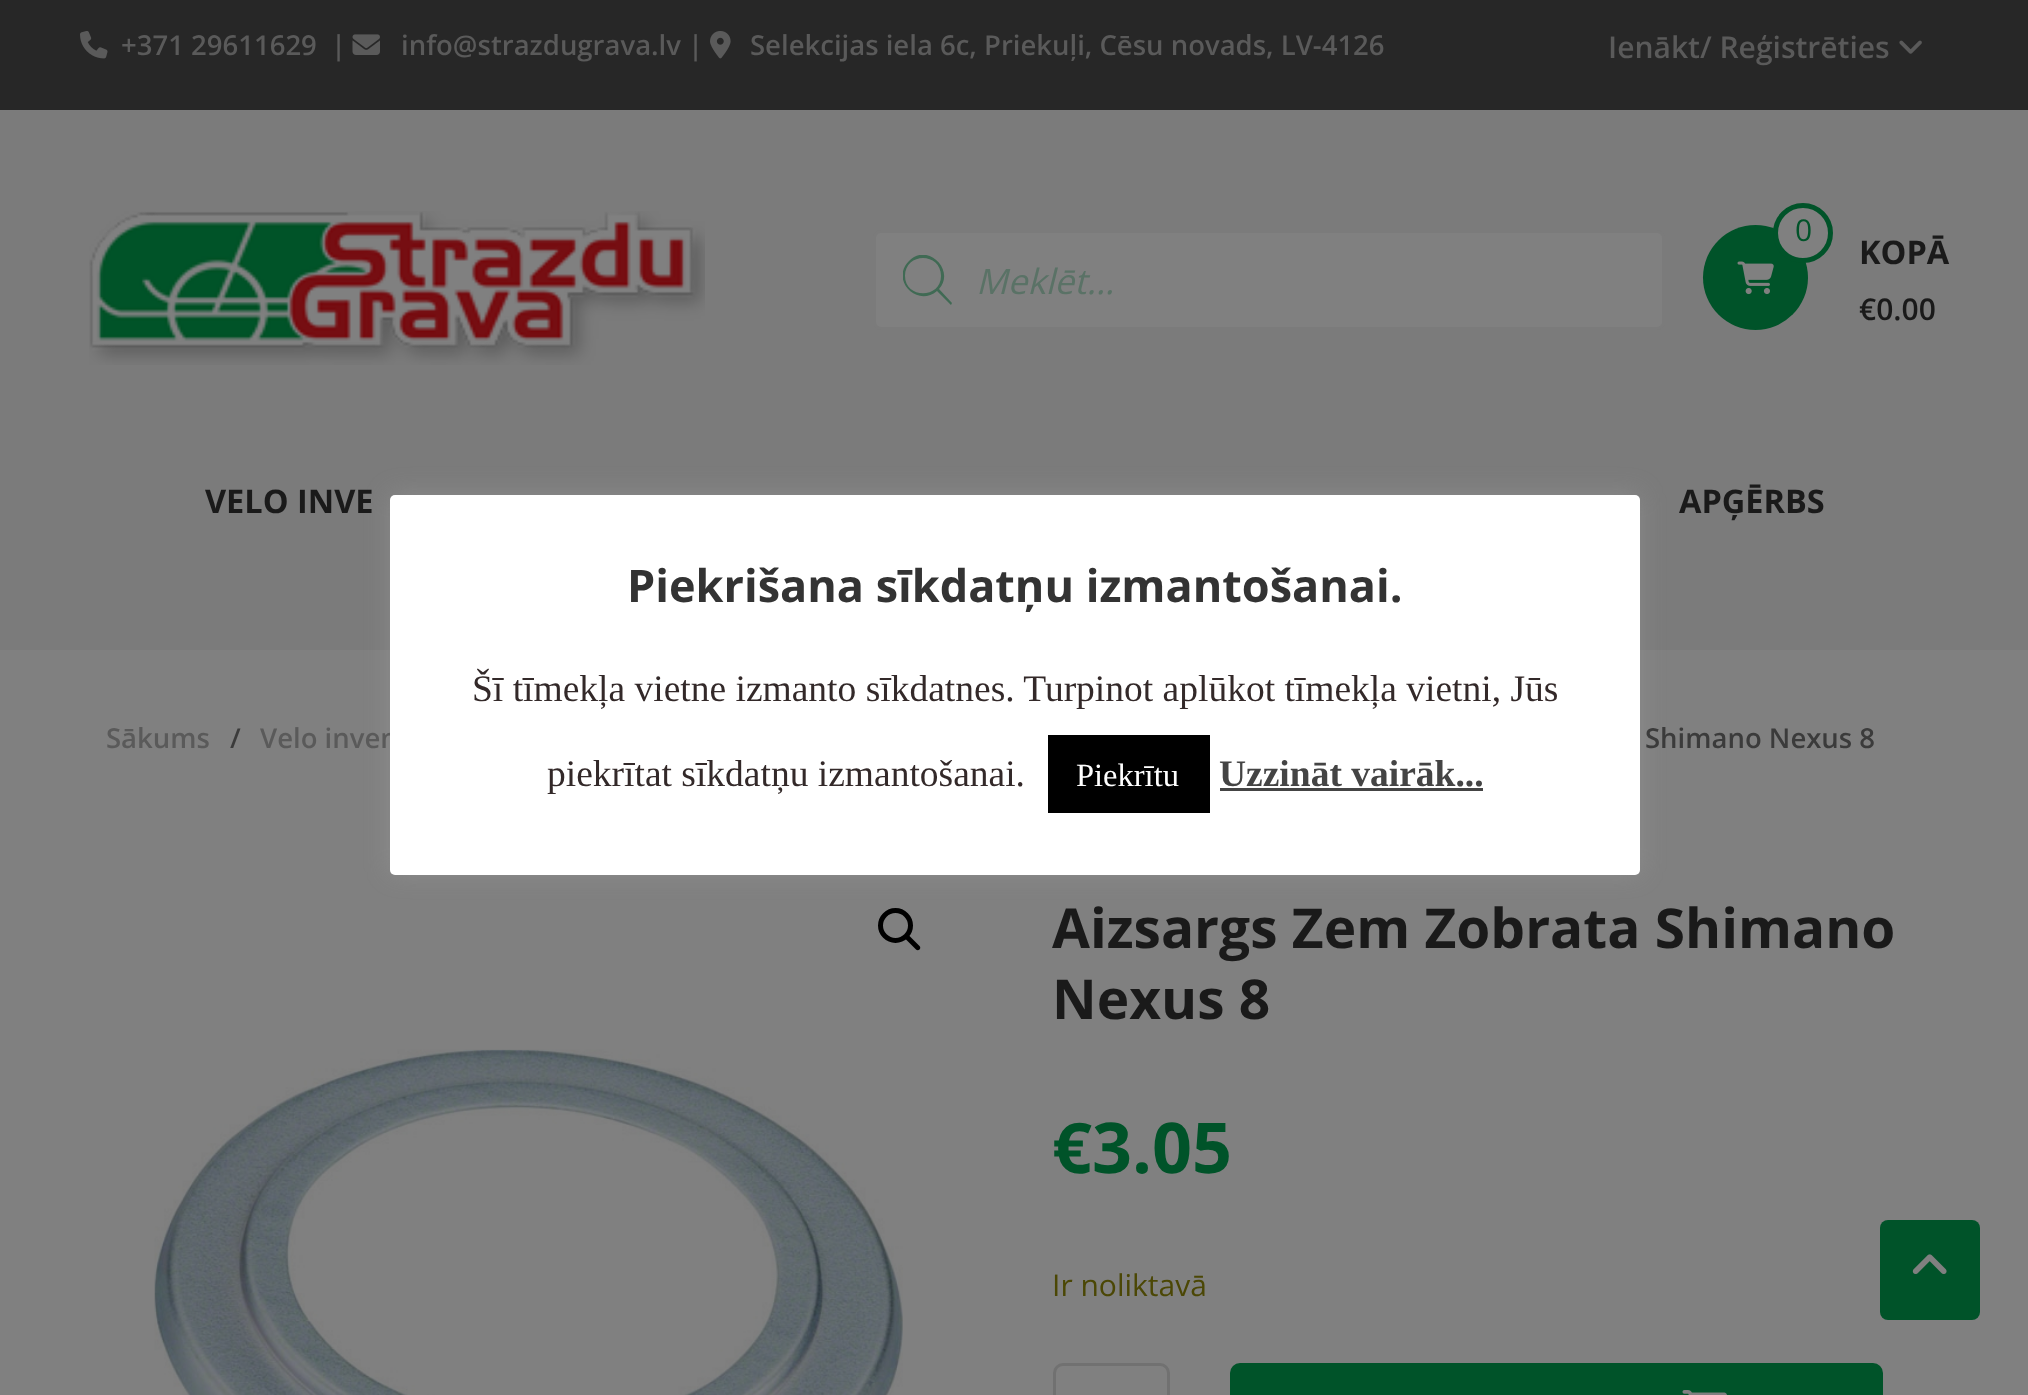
<?xml version="1.0" encoding="UTF-8"?>
<svg xmlns="http://www.w3.org/2000/svg" xmlns:xlink="http://www.w3.org/1999/xlink" width="2028" height="1395">
  <defs>
    <clipPath id="clip1"><rect x="903" y="255" width="50" height="50" /></clipPath>
  </defs>
  <rect width="100%" height="100%" fill="#808080" />
  <rect width="2028" height="110" fill="#272727" />
  <image x="80" y="31" width="28" height="28" xlink:href="image1.png" />
  <image x="352" y="34" width="28" height="21" xlink:href="image2.png" />
  <image x="710" y="31" width="21" height="28" xlink:href="image3.png" />
  <image x="1899" y="40" width="23" height="14" xlink:href="image4.png" />
  <rect y="110" width="2028" height="540" fill="#7b7b7b" />
  <image x="89" y="211" width="616" height="154" xlink:href="image5.png" />
  <rect x="874.5" y="231.5" width="789" height="97" rx="6.5" fill="#808080" stroke="#7b7b7b" stroke-width="3" />
  <g clip-path="url(#clip1)">
    <path d="M 952 303 l -13 -14 c 17 -19 -12 -47 -30 -28 c -19 19 8 47 28 30 l 14 14 z m -47 -27 c 0 -24 36 -24 36 0 c 0 23 -36 23 -36 0 z" fill="#406a54" />
  </g>
  <circle cx="1755.5" cy="277.5" r="52.5" fill="#005329" />
  <image x="1737" y="261" width="37" height="34" xlink:href="image6.png" />
  <circle cx="1803" cy="233" r="27.5" fill="#808080" stroke="#005329" stroke-width="5" />
  <circle cx="895.5" cy="925.5" r="15" fill="none" stroke="#000000" stroke-width="5" />
  <path d="M 905.5 935.5 c 1 -1 2.5 -1 3.5 0 l 10.5 10.5 c 1 1 1 2.5 0 3.5 c -1 1 -2.5 1 -3.5 0 l -10.5 -10.5 c -1 -1 -1 -2.5 0 -3.5 z" fill="#000000" />
  <image x="154" y="1049" width="749" height="346" xlink:href="image7.png" />
  <rect x="1054.5" y="1364.5" width="114" height="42" rx="8.5" fill="none" stroke="#717171" stroke-width="3" />
  <rect x="1230" y="1363" width="653" height="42" rx="10" fill="#005329" />
  <image x="1682" y="1390" width="45" height="5" xlink:href="image8.png" />
  <rect x="1880" y="1220" width="100" height="100" rx="8" fill="#005329" />
  <image x="1912" y="1254" width="35" height="20" xlink:href="image9.png" />
  <rect x="390" y="493" width="1250" height="380" rx="5" fill="#acabab" fill-opacity="0.3" filter="blur(12.5px)" />
  <text x="121" y="55" style="font-family: Open Sans; font-size: 27.5px; font-weight: 600; fill: #5a5a5a" xml:space="preserve">+371 29611629  |</text>
  <text x="401" y="55" style="font-family: Open Sans; font-size: 27.5px; font-weight: 600; fill: #5a5a5a">info@strazdugrava.lv |</text>
  <text x="750" y="55" style="font-family: Open Sans; font-size: 27.5px; font-weight: 600; fill: #5a5a5a">Selekcijas iela 6c, Priekuļi, Cēsu novads, LV-4126</text>
  <text x="1608" y="58" style="font-family: Open Sans; font-size: 30px; font-weight: 600; fill: #5a5a5a">Ienākt/ Reģistrēties</text>
  <text x="976" y="294" style="font-family: Open Sans; font-size: 35px; font-style: italic; fill: #5a7266">Meklēt...</text>
  <text x="1795" y="241" style="font-family: Open Sans; font-size: 30px; fill: #005329">0</text>
  <text x="1859" y="264" style="font-family: Open Sans; font-size: 32.5px; font-weight: bold; fill: #1a1a1a">KOPĀ</text>
  <text x="1859" y="320" style="font-family: Open Sans; font-size: 30px; font-weight: 600; fill: #1a1a1a">€0.00</text>
  <text x="205" y="513" style="font-family: Open Sans; font-size: 32.5px; font-weight: bold; fill: #1a1a1a">VELO INVE</text>
  <text x="1679" y="513" style="font-family: Open Sans; font-size: 32.5px; font-weight: bold; fill: #1a1a1a">APĢĒRBS</text>
  <text x="106" y="748" style="font-family: Open Sans; font-size: 27.5px; font-weight: 600; fill: #5a5a5a">Sākums</text>
  <text x="230" y="748" style="font-family: Open Sans; font-size: 27.5px; font-weight: 600; fill: #3b3b3b">/</text>
  <text x="260" y="748" style="font-family: Open Sans; font-size: 27.5px; font-weight: 600; fill: #5a5a5a">Velo inven</text>
  <text x="1645" y="748" style="font-family: Open Sans; font-size: 27.5px; font-weight: 600; fill: #3b3b3b">Shimano Nexus 8</text>
  <text x="1052" y="948" style="font-family: Open Sans; font-size: 55px; font-weight: bold; fill: #1a1a1a">Aizsargs Zem Zobrata Shimano</text>
  <text x="1052" y="1019" style="font-family: Open Sans; font-size: 55px; font-weight: bold; fill: #1a1a1a">Nexus 8</text>
  <text x="1052" y="1173" style="font-family: Open Sans; font-size: 70px; font-weight: bold; fill: #005329">€3.05</text>
  <text x="1052" y="1296" style="font-family: Open Sans; font-size: 30px; fill: #4b4705">Ir noliktavā</text>
  <rect x="390" y="495" width="1250" height="380" rx="5" fill="#ffffff" />
  <text x="627" y="602" style="font-family: Open Sans; font-size: 45px; font-weight: bold; fill: #333333">Piekrišana sīkdatņu izmantošanai.</text>
  <text x="472" y="701" style="font-family: Liberation Serif; font-size: 37.5px; fill: #332929">Šī tīmekļa vietne izmanto sīkdatnes. Turpinot aplūkot tīmekļa vietni, Jūs</text>
  <text x="547" y="786" style="font-family: Liberation Serif; font-size: 37.5px; fill: #332929">piekrītat sīkdatņu izmantošanai.</text>
  <rect x="1048" y="735" width="162" height="78" fill="#000000" />
  <text x="1076" y="786" style="font-family: Liberation Serif; font-size: 32.5px; fill: #ffffff">Piekrītu</text>
  <text x="1219" y="786" style="font-family: Liberation Serif; font-size: 37.5px; font-weight: bold; fill: #444444">Uzzināt vairāk...</text>
  <rect x="1220" y="788" width="263" height="3" fill="#444444" />
</svg>
